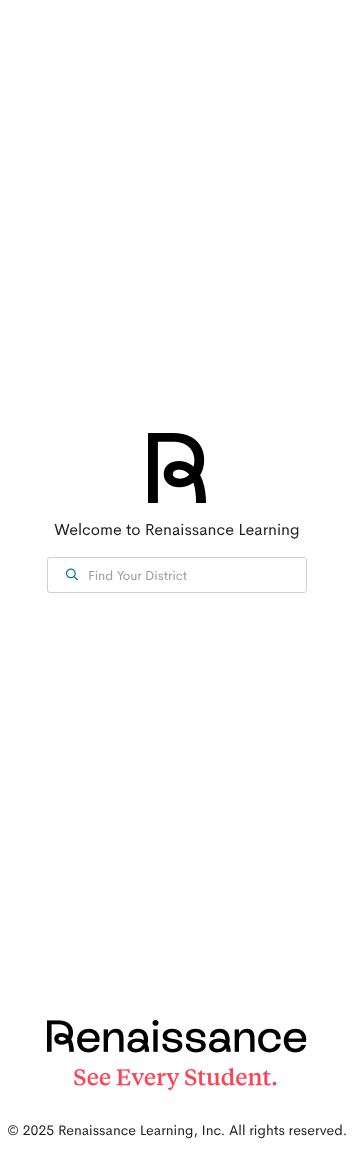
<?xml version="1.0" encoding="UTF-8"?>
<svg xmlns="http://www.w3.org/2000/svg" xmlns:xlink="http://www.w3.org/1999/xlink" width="354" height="1161">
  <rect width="100%" height="100%" fill="#ffffff" />
  <image x="148" y="433" width="58" height="70" xlink:href="image1.png" />
  <rect x="47.5" y="557.5" width="259" height="35" rx="2.5" fill="none" stroke="#ced0d9" />
  <image x="66" y="568" width="12" height="13" xlink:href="image2.png" />
  <image x="47" y="1020" width="260" height="70" xlink:href="image3.png" />
  <text x="54" y="535" style="font-family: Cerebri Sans; font-size: 16px; fill: #212121">Welcome to Renaissance Learning</text>
  <text x="88" y="580" style="font-family: Cerebri Sans; font-size: 13px; fill: #9e9e9e">Find Your District</text>
  <text x="7" y="1135" style="font-family: Cerebri Sans; font-size: 14px; fill: #212121">© 2025 Renaissance Learning, Inc. All rights reserved.</text>
</svg>
